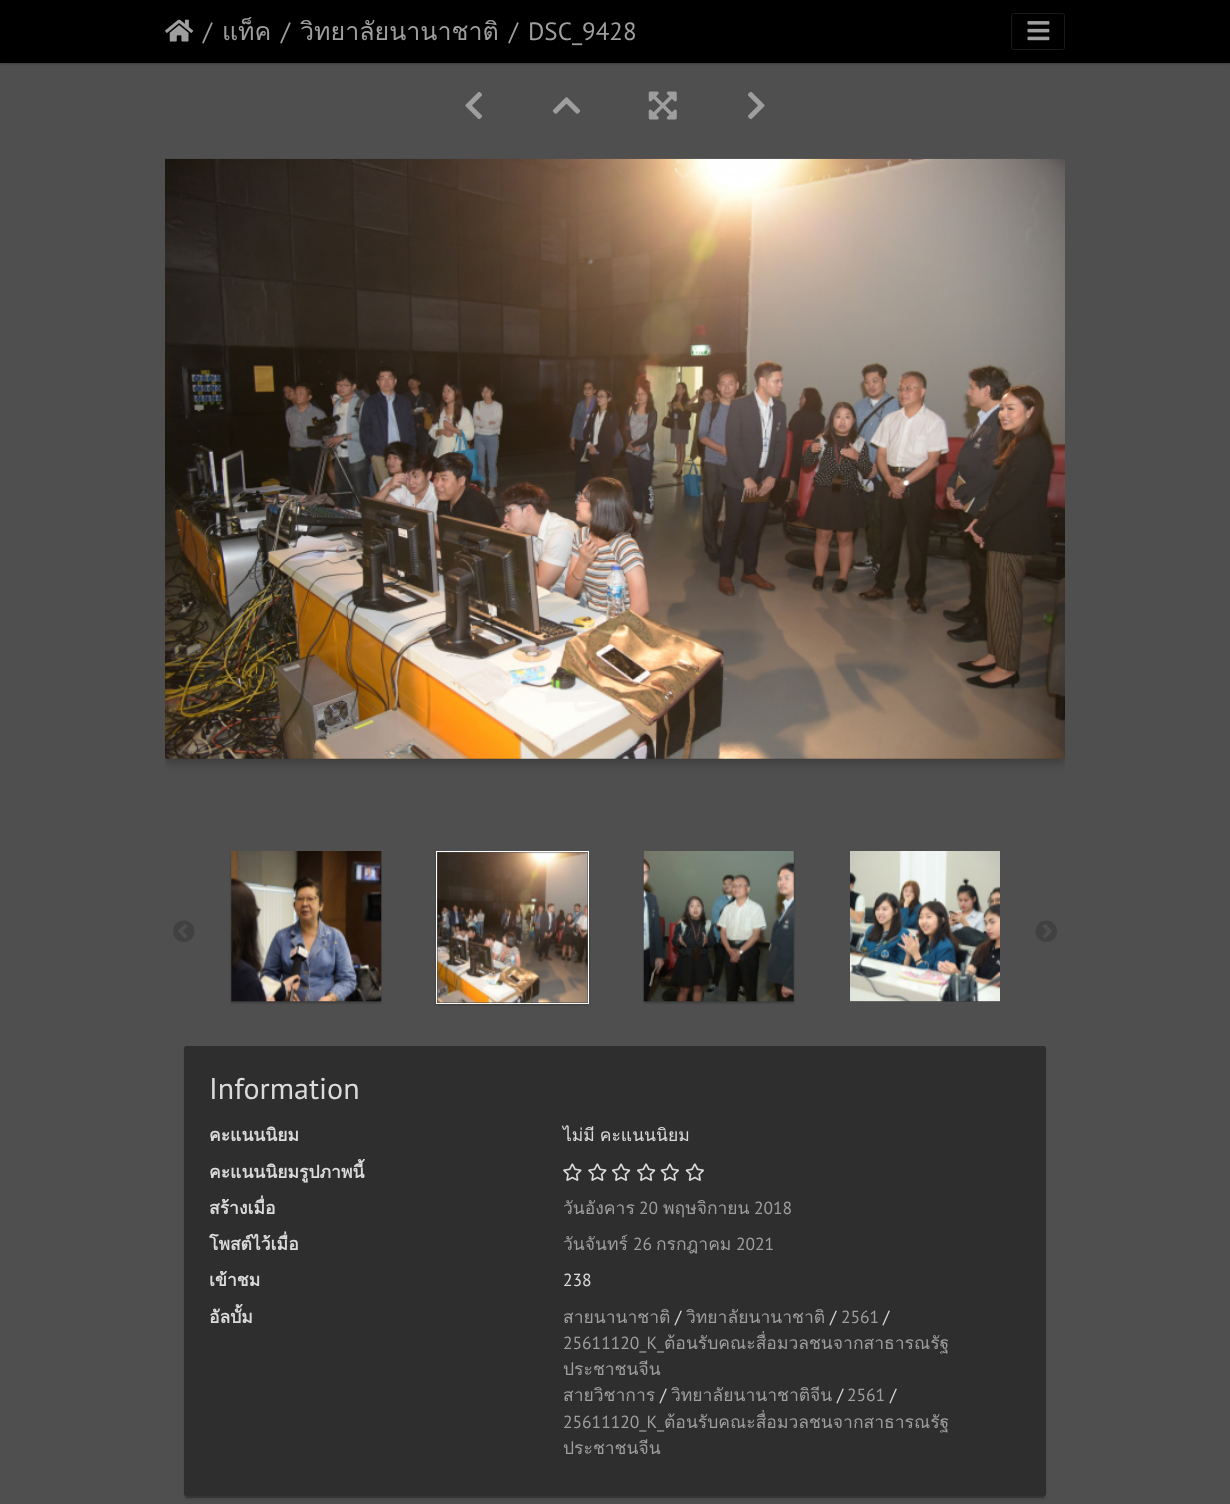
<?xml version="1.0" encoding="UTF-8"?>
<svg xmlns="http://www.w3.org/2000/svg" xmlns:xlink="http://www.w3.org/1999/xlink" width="1230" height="1504">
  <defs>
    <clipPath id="clip1"><rect x="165" y="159" width="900" height="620" /></clipPath>
    <clipPath id="clip2"><path d="M 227 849 h 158 v 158 h -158 z m 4 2 h 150 v 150 h -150 z" clip-rule="evenodd" /></clipPath>
    <clipPath id="clip3"><path d="M 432 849 h 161 v 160 h -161 z m 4 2 h 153 v 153 h -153 z" clip-rule="evenodd" /></clipPath>
    <clipPath id="clip4"><path d="M 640 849 h 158 v 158 h -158 z m 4 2 h 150 v 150 h -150 z" clip-rule="evenodd" /></clipPath>
    <clipPath id="clip5"><rect x="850" y="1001" width="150" height="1" /></clipPath>
  </defs>
  <rect width="100%" height="100%" fill="#4f4f4f" />
  <rect y="1" width="1230" height="63" fill="#000000" fill-opacity="0.24" filter="blur(1px)" />
  <rect width="1230" height="63" fill="#000000" />
  <image x="165" y="19" width="29" height="23" xlink:href="image1.png" />
  <rect x="1011.5" y="13.5" width="53" height="36" rx="2" fill="none" stroke="#1a1a1a" />
  <image x="1027" y="21" width="23" height="20" xlink:href="image2.png" />
  <image x="465" y="91" width="17" height="29" xlink:href="image3.png" />
  <image x="552" y="97" width="29" height="17" xlink:href="image4.png" />
  <image x="648" y="91" width="29" height="29" xlink:href="image5.png" />
  <image x="748" y="91" width="17" height="29" xlink:href="image6.png" />
  <g clip-path="url(#clip1)">
    <rect x="165" y="163" width="900" height="600" fill="#000000" fill-opacity="0.23" filter="blur(4px)" />
  </g>
  <image x="165" y="158" width="900" height="601" xlink:href="image7.png" />
  <image x="173" y="920" width="22" height="22" xlink:href="image8.png" />
  <g clip-path="url(#clip2)">
    <rect x="231" y="853" width="150" height="150" fill="#000000" fill-opacity="0.24" filter="blur(1px)" />
  </g>
  <image x="231" y="851" width="151" height="151" xlink:href="image9.png" />
  <g clip-path="url(#clip3)">
    <rect x="436" y="853" width="153" height="152" fill="#000000" fill-opacity="0.24" filter="blur(1px)" />
  </g>
  <rect x="436.5" y="851.5" width="152" height="152" fill="none" stroke="#ffffff" />
  <image x="437" y="852" width="151" height="152" xlink:href="image10.png" />
  <g clip-path="url(#clip4)">
    <rect x="644" y="853" width="150" height="150" fill="#000000" fill-opacity="0.24" filter="blur(1px)" />
  </g>
  <image x="643" y="851" width="151" height="151" xlink:href="image11.png" />
  <g clip-path="url(#clip5)">
    <rect x="850" y="853" width="150" height="150" fill="#000000" fill-opacity="0.24" filter="blur(1px)" />
  </g>
  <image x="850" y="851" width="150" height="151" xlink:href="image12.png" />
  <image x="1035" y="920" width="22" height="22" xlink:href="image13.png" />
  <rect x="186" y="1053" width="858" height="445" fill="#000000" fill-opacity="0.2" filter="blur(0.5px)" />
  <rect x="184" y="1049" width="862" height="450" rx="2.5" fill="#000000" fill-opacity="0.14" filter="blur(1px)" />
  <rect x="184" y="1046" width="862" height="450" rx="2.5" fill="#2e2e2e" />
  <image x="563" y="1163" width="19" height="18" xlink:href="image14.png" />
  <image x="588" y="1163" width="19" height="18" xlink:href="image14.png" />
  <image x="612" y="1163" width="19" height="18" xlink:href="image15.png" />
  <image x="637" y="1163" width="19" height="18" xlink:href="image15.png" />
  <image x="660" y="1163" width="19" height="18" xlink:href="image16.png" />
  <image x="685" y="1163" width="19" height="18" xlink:href="image16.png" />
  <text x="203" y="40" style="font-family: PT Sans; font-size: 25px; fill: #9e9e9e">/</text>
  <text x="222" y="40" style="font-family: Loma; font-size: 25px; fill: #9e9e9e">แท็ค</text>
  <text x="281" y="40" style="font-family: PT Sans; font-size: 25px; fill: #9e9e9e">/</text>
  <text x="300" y="40" style="font-family: Loma; font-size: 25px; fill: #9e9e9e">วิทยาลัยนานาชาติ</text>
  <text x="509" y="40" style="font-family: PT Sans; font-size: 25px; fill: #9e9e9e">/</text>
  <text x="528" y="40" style="font-family: PT Sans; font-size: 25px; fill: #9e9e9e">DSC_9428</text>
  <text x="209" y="1099" style="font-family: PT Sans; font-size: 30px; fill: #dbdbdb">Information</text>
  <text x="209" y="1141" style="font-family: Loma; font-size: 17.5px; font-weight: bold; fill: #dbdbdb">คะแนนนิยม</text>
  <text x="563" y="1141" word-spacing="-1" style="font-family: Loma; font-size: 17.5px; fill: #dbdbdb">ไม่มี คะแนนนิยม</text>
  <text x="209" y="1178" style="font-family: Loma; font-size: 17.5px; font-weight: bold; fill: #dbdbdb">คะแนนนิยมรูปภาพนี้</text>
  <text x="209" y="1214" style="font-family: Loma; font-size: 17.5px; font-weight: bold; fill: #dbdbdb">สร้างเมื่อ</text>
  <text x="563" y="1214" style="font-family: Loma; font-size: 17.5px; fill: #9e9e9e">วันอังคาร</text>
  <text x="639" y="1214" style="font-family: PT Sans; font-size: 17.5px; fill: #9e9e9e">20</text>
  <text x="663" y="1214" style="font-family: Loma; font-size: 17.5px; fill: #9e9e9e">พฤษจิกายน</text>
  <text x="754" y="1214" style="font-family: PT Sans; font-size: 17.5px; fill: #9e9e9e">2018</text>
  <text x="209" y="1250" style="font-family: Loma; font-size: 17.5px; font-weight: bold; fill: #dbdbdb">โพสต์ไว้เมื่อ</text>
  <text x="563" y="1250" style="font-family: Loma; font-size: 17.5px; fill: #9e9e9e">วันจันทร์</text>
  <text x="633" y="1250" style="font-family: PT Sans; font-size: 17.5px; fill: #9e9e9e">26</text>
  <text x="656" y="1250" style="font-family: Loma; font-size: 17.5px; fill: #9e9e9e">กรกฎาคม</text>
  <text x="736" y="1250" style="font-family: PT Sans; font-size: 17.5px; fill: #9e9e9e">2021</text>
  <text x="209" y="1286" style="font-family: Loma; font-size: 17.5px; font-weight: bold; fill: #dbdbdb">เข้าชม</text>
  <text x="563" y="1286" style="font-family: PT Sans; font-size: 17.5px; fill: #dbdbdb">238</text>
  <text x="209" y="1323" style="font-family: Loma; font-size: 17.5px; font-weight: bold; fill: #dbdbdb">อัลบั้ม</text>
  <text x="563" y="1323" style="font-family: Loma; font-size: 17.5px; fill: #9e9e9e">สายนานาชาติ</text>
  <text x="675" y="1323" style="font-family: PT Sans; font-size: 17.5px; fill: #dbdbdb">/</text>
  <text x="686" y="1323" style="font-family: Loma; font-size: 17.5px; fill: #9e9e9e">วิทยาลัยนานาชาติ</text>
  <text x="830" y="1323" style="font-family: PT Sans; font-size: 17.5px; fill: #dbdbdb">/</text>
  <text x="841" y="1323" style="font-family: PT Sans; font-size: 17.5px; fill: #9e9e9e">2561</text>
  <text x="883" y="1323" style="font-family: PT Sans; font-size: 17.5px; fill: #dbdbdb">/</text>
  <text x="563" y="1349" style="font-family: PT Sans; font-size: 17.5px; fill: #9e9e9e">25611120_K_</text>
  <text x="664" y="1349" style="font-family: Loma; font-size: 17.5px; fill: #9e9e9e">ต้อนรับคณะสื่อมวลชนจากสาธารณรัฐ</text>
  <text x="563" y="1375" style="font-family: Loma; font-size: 17.5px; fill: #9e9e9e">ประชาชนจีน</text>
  <text x="563" y="1401" style="font-family: Loma; font-size: 17.5px; fill: #9e9e9e">สายวิชาการ</text>
  <text x="660" y="1401" style="font-family: PT Sans; font-size: 17.5px; fill: #dbdbdb">/</text>
  <text x="671" y="1401" style="font-family: Loma; font-size: 17.5px; fill: #9e9e9e">วิทยาลัยนานาชาติจีน</text>
  <text x="837" y="1401" style="font-family: PT Sans; font-size: 17.5px; fill: #dbdbdb">/</text>
  <text x="847" y="1401" style="font-family: PT Sans; font-size: 17.5px; fill: #9e9e9e">2561</text>
  <text x="890" y="1401" style="font-family: PT Sans; font-size: 17.5px; fill: #dbdbdb">/</text>
  <text x="563" y="1428" style="font-family: PT Sans; font-size: 17.5px; fill: #9e9e9e">25611120_K_</text>
  <text x="664" y="1428" style="font-family: Loma; font-size: 17.5px; fill: #9e9e9e">ต้อนรับคณะสื่อมวลชนจากสาธารณรัฐ</text>
  <text x="563" y="1454" style="font-family: Loma; font-size: 17.5px; fill: #9e9e9e">ประชาชนจีน</text>
</svg>
